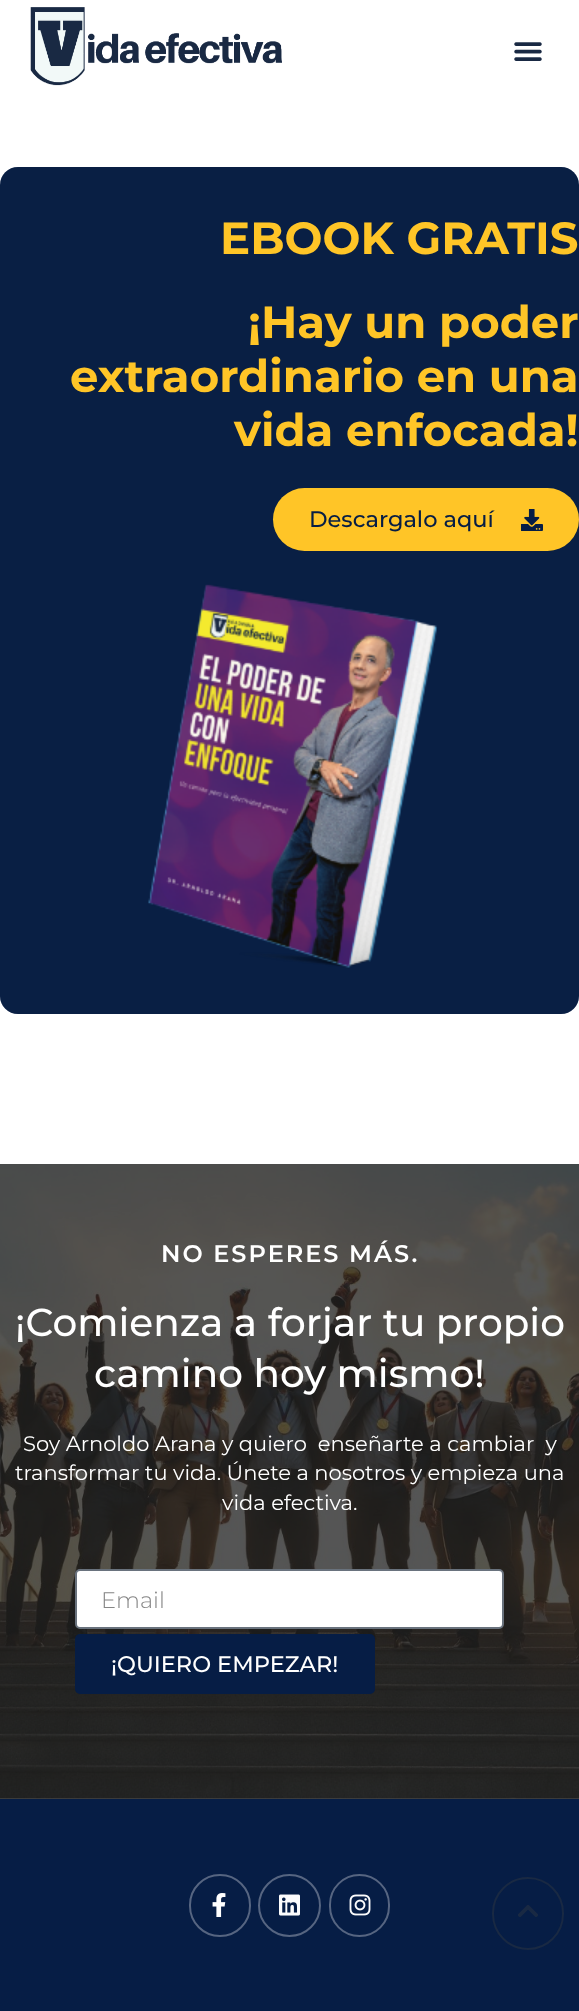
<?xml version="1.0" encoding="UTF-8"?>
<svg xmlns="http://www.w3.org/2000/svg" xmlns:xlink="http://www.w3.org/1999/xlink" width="579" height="2011">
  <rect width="100%" height="100%" fill="#ffffff" />
  <rect y="1798" width="579" height="1" fill="#555555" />
  <image x="30" y="7" width="252" height="79" xlink:href="image1.png" />
  <image x="514" y="42" width="28" height="19" xlink:href="image2.png" />
  <rect y="167" width="579" height="847" rx="18" fill="#061d45" />
  <rect y="167" width="579" height="847" rx="18" fill="#192943" fill-opacity="0.22" />
  <rect x="273" y="488" width="306" height="63" rx="31.5" fill="#ffc527" />
  <image x="521" y="509" width="22" height="22" xlink:href="image3.png" />
  <image x="148" y="584" width="290" height="384" xlink:href="image4.png" />
  <image x="0" y="1164" width="579" height="635" xlink:href="image5.png" />
  <rect x="76" y="1570" width="427" height="58" rx="4" fill="#ffffff" stroke="#69727d" stroke-width="2" />
  <rect x="75" y="1634" width="300" height="60" rx="5" fill="#061d45" />
  <rect y="1799" width="579" height="212" fill="#061d45" />
  <rect x="190" y="1875" width="60" height="61" rx="30" fill="none" stroke="#566581" stroke-width="2" />
  <image x="212" y="1893" width="14" height="24" xlink:href="image6.png" />
  <circle cx="289.5" cy="1905.5" r="30.5" fill="none" stroke="#566581" stroke-width="2" />
  <image x="279" y="1894" width="21" height="22" xlink:href="image7.png" />
  <rect x="330" y="1875" width="59" height="61" rx="29.5" fill="none" stroke="#566581" stroke-width="2" />
  <image x="349" y="1894" width="22" height="22" xlink:href="image8.png" />
  <rect x="493" y="1878" width="70" height="71" rx="35" fill="none" stroke="#192943" stroke-width="2" />
  <image x="518" y="1905" width="20" height="12" xlink:href="image9.png" />
  <text x="220" y="254" style="font-family: Montserrat; font-size: 45px; font-weight: bold; fill: #ffc527">EBOOK GRATIS</text>
  <text x="248" y="338" style="font-family: Montserrat; font-size: 45px; font-weight: bold; fill: #ffc527">¡Hay un poder</text>
  <text x="70" y="392" style="font-family: Montserrat; font-size: 45px; font-weight: bold; fill: #ffc527">extraordinario en una</text>
  <text x="234" y="446" style="font-family: Montserrat; font-size: 45px; font-weight: bold; fill: #ffc527">vida enfocada!</text>
  <text x="309" y="527" style="font-family: Montserrat; font-size: 22.5px; font-weight: 500; fill: #061d45">Descargalo aquí</text>
  <text x="161" y="1262" style="font-family: Montserrat; font-size: 24px; font-weight: 600; letter-spacing: 2px; fill: #ffffff">NO ESPERES MÁS.</text>
  <text x="15" y="1336" style="font-family: Montserrat; font-size: 39px; font-weight: 500; fill: #ffffff">¡Comienza a forjar tu propio</text>
  <text x="94" y="1387" style="font-family: Montserrat; font-size: 39px; font-weight: 500; fill: #ffffff">camino hoy mismo!</text>
  <text x="23" y="1451" style="font-family: Montserrat; font-size: 21px; fill: #ffffff" xml:space="preserve">Soy Arnoldo Arana y quiero  enseñarte a cambiar  y</text>
  <text x="15" y="1480" style="font-family: Montserrat; font-size: 21px; fill: #ffffff">transformar tu vida. Únete a nosotros y empieza una</text>
  <text x="222" y="1510" style="font-family: Montserrat; font-size: 21px; fill: #ffffff">vida efectiva.</text>
  <text x="101" y="1608" style="font-family: Montserrat; font-size: 22.5px; font-weight: 300; fill: #868686">Email</text>
  <text x="111" y="1672" style="font-family: Montserrat; font-size: 22.5px; font-weight: 500; fill: #ffffff">¡QUIERO EMPEZAR!</text>
</svg>
